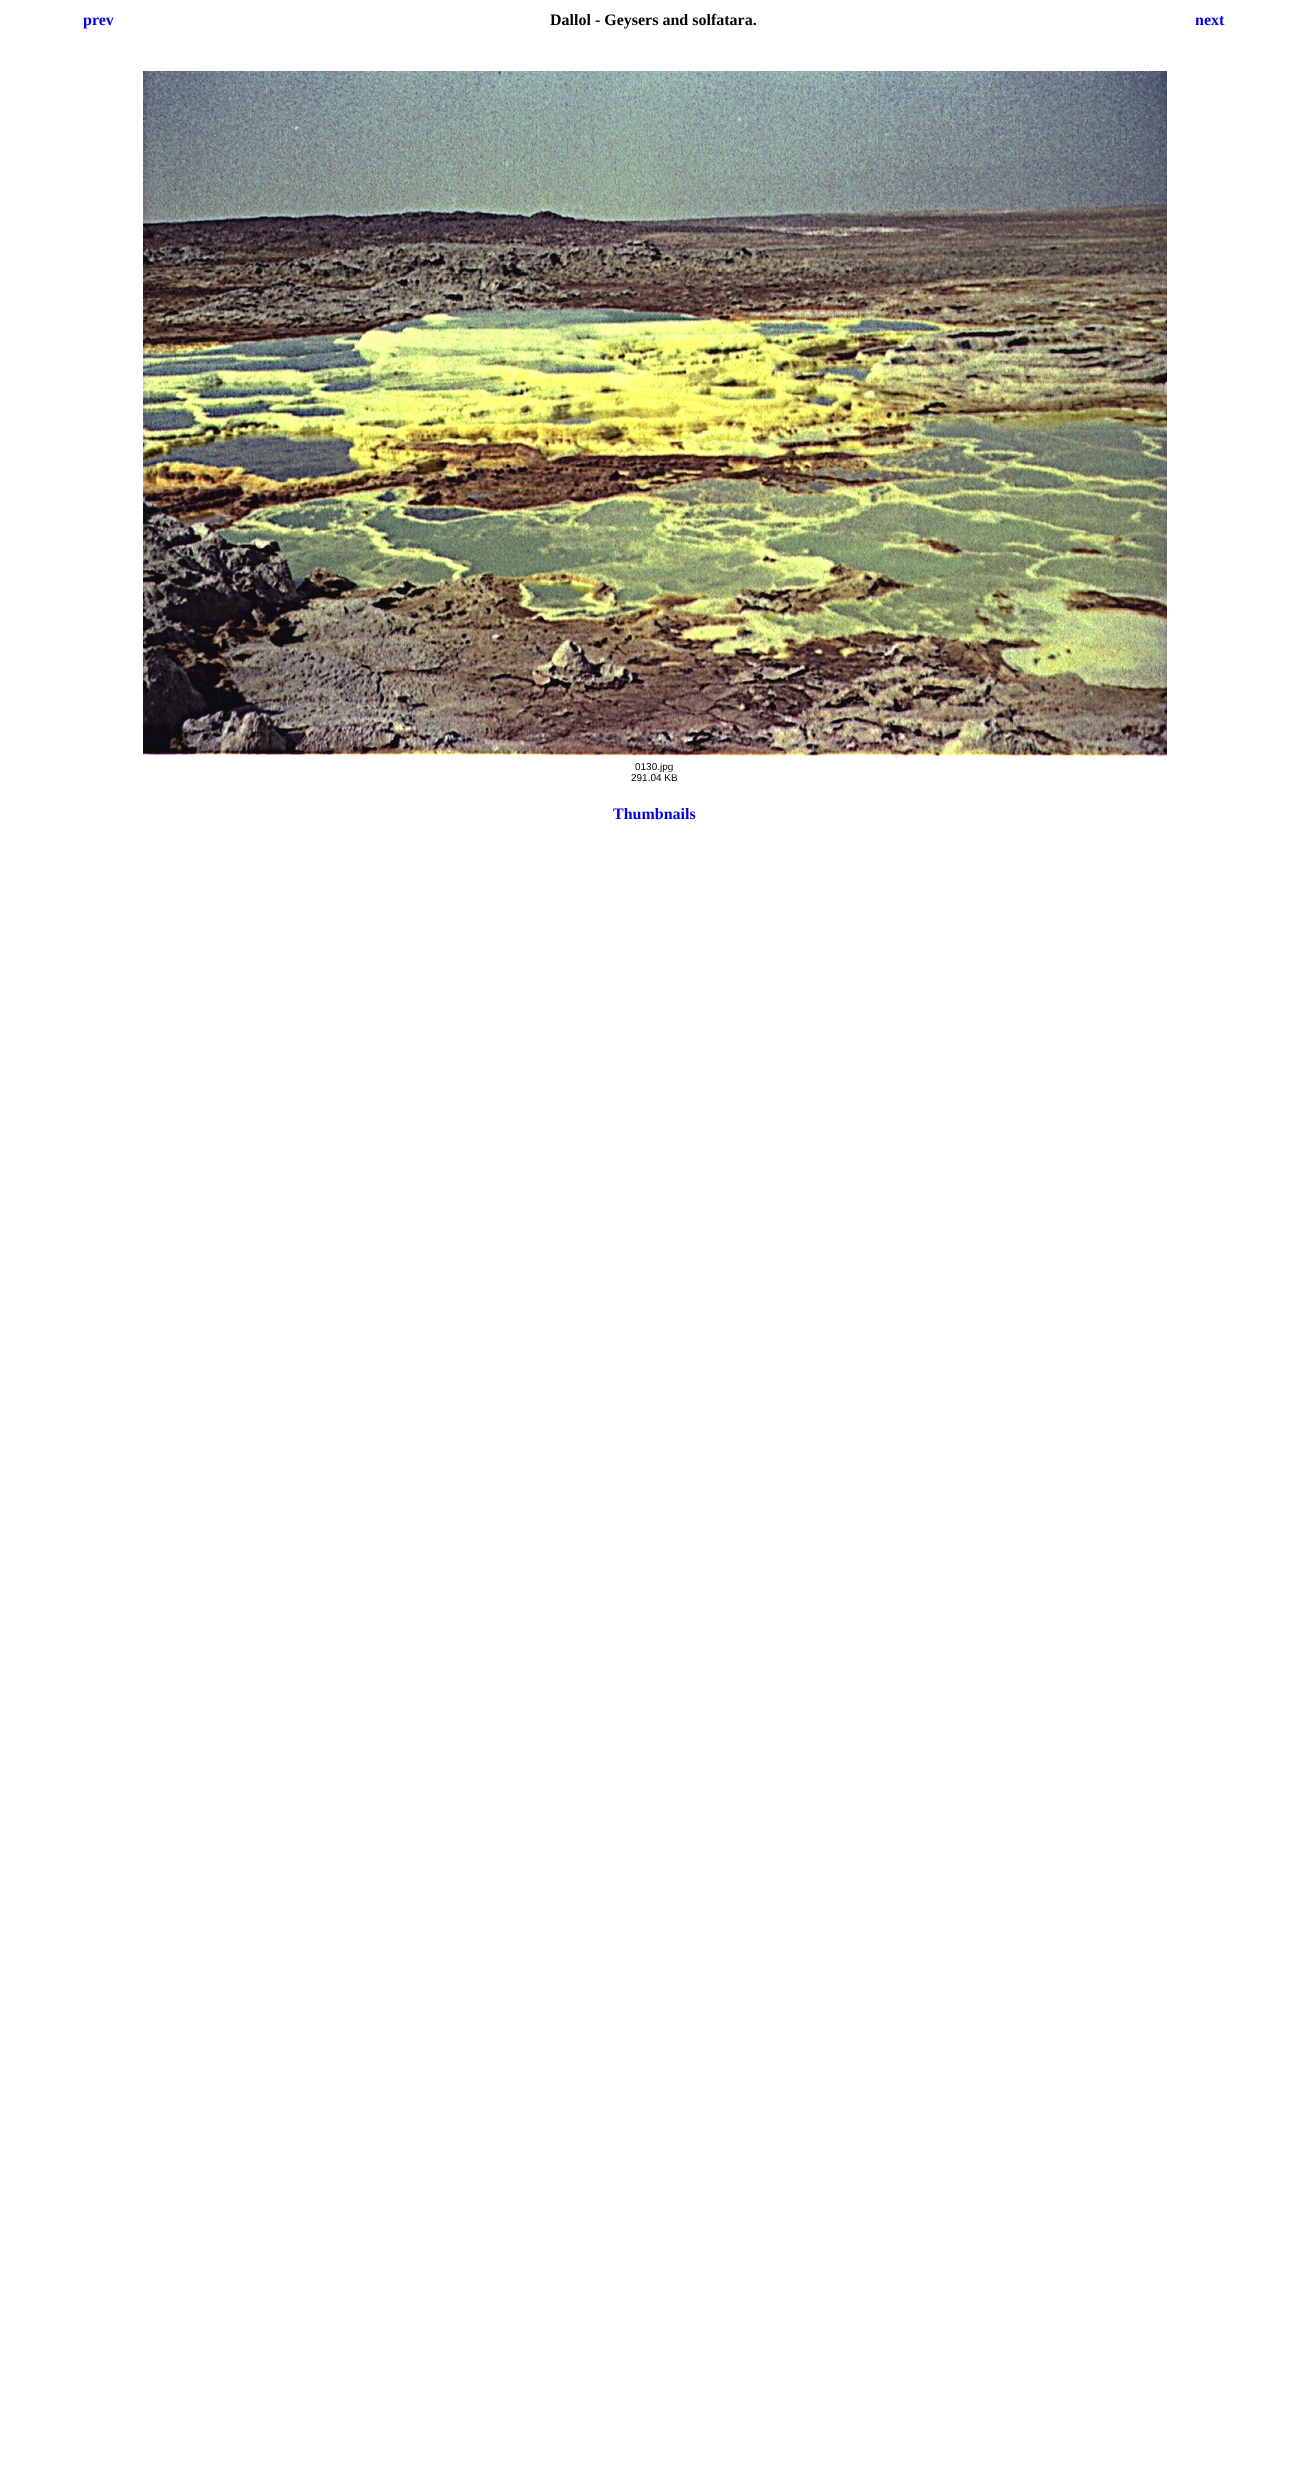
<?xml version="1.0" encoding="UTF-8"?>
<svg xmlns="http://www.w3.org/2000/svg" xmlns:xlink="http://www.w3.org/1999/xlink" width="1309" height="2484">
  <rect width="100%" height="100%" fill="#ffffff" />
  <image x="143" y="71" width="1024" height="688" xlink:href="image1.png" />
  <text x="83" y="25" style="font-family: Liberation Serif; font-size: 16px; font-weight: bold; fill: #0000ee">prev</text>
  <text x="550" y="25" style="font-family: Liberation Serif; font-size: 16px; font-weight: bold; fill: #000000">Dallol - Geysers and solfatara.</text>
  <text x="1195" y="25" style="font-family: Liberation Serif; font-size: 16px; font-weight: bold; fill: #0000ee">next</text>
  <text x="635" y="770" style="font-family: Liberation Sans; font-size: 10px; fill: #000000">0130.jpg</text>
  <text x="631" y="781" style="font-family: Liberation Sans; font-size: 10px; fill: #000000">291.04 KB</text>
  <text x="613" y="819" style="font-family: Liberation Serif; font-size: 16px; font-weight: bold; fill: #0000ee">Thumbnails</text>
</svg>
